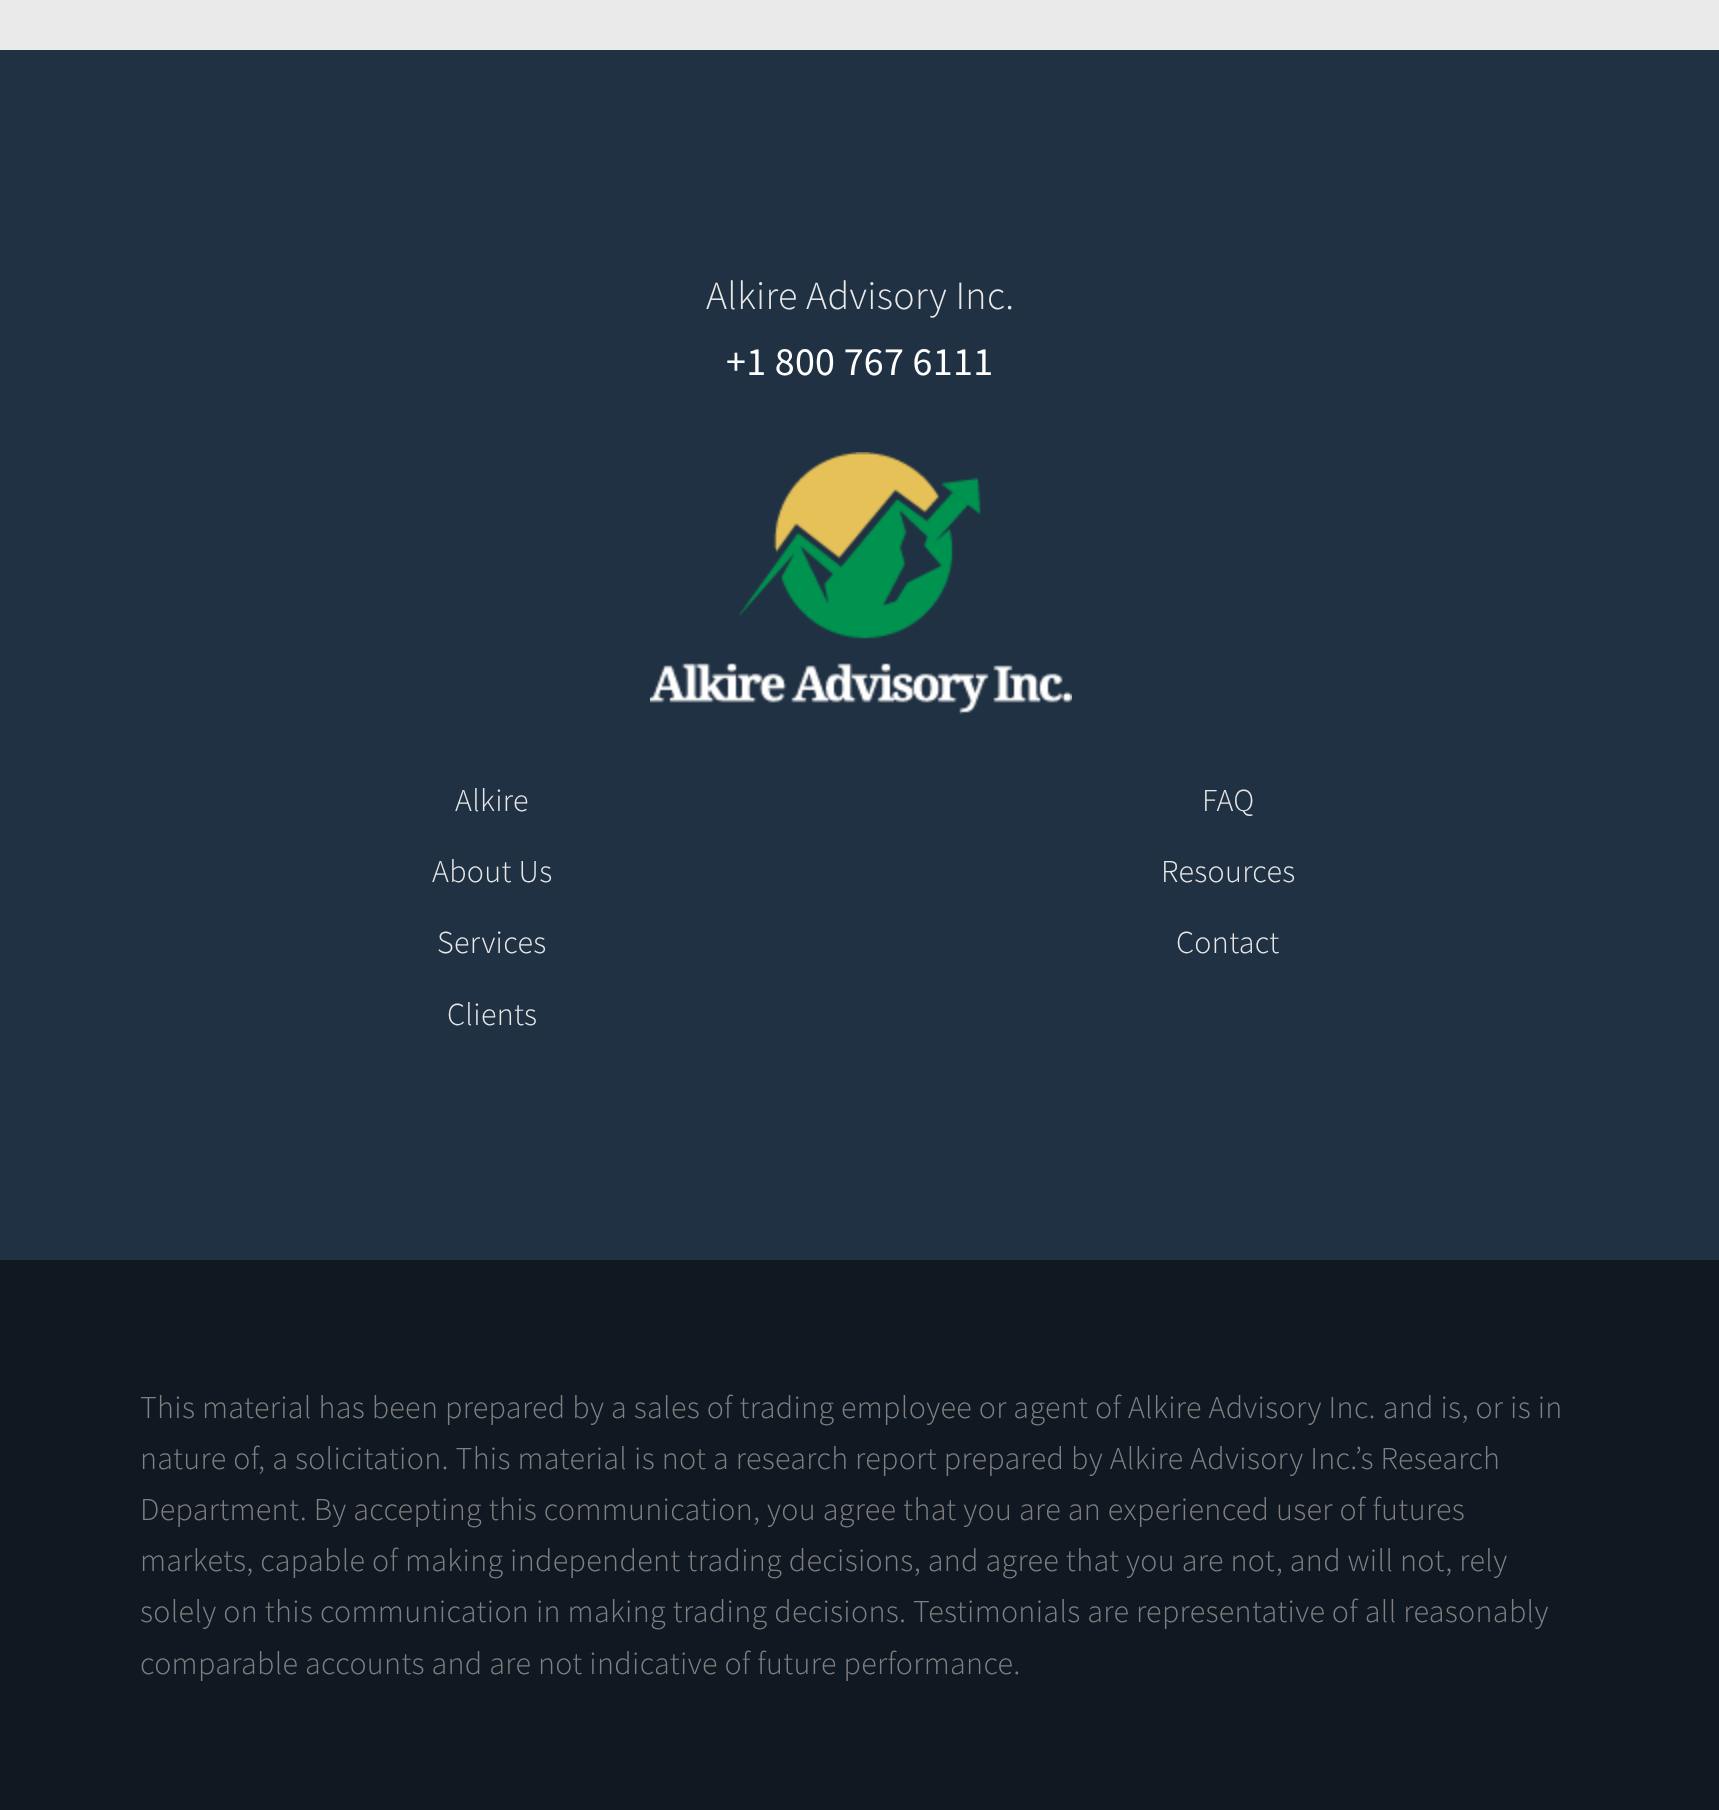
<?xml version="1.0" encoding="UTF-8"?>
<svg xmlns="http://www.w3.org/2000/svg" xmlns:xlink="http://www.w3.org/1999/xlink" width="1719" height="1810">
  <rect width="100%" height="100%" fill="#203143" />
  <rect width="1719" height="50" fill="#eaeaea" />
  <image x="650" y="452" width="422" height="262" xlink:href="image1.png" />
  <rect y="1260" width="1719" height="550" fill="#101922" />
  <text x="706" y="309" style="font-family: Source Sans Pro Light; font-size: 40px; font-weight: 300; letter-spacing: 0.32px; fill: #e8e8e8">Alkire Advisory Inc.</text>
  <text x="726" y="375" style="font-family: Source Sans Pro; font-size: 40px; letter-spacing: 0.32px; fill: #ffffff">+1 800 767 6111</text>
  <text x="455" y="811" style="font-family: Source Sans Pro Light; font-size: 32px; font-weight: 300; letter-spacing: 0.32px; fill: #e8e8e8">Alkire</text>
  <text x="1202" y="811" style="font-family: Source Sans Pro Light; font-size: 32px; font-weight: 300; letter-spacing: 0.32px; fill: #e8e8e8">FAQ</text>
  <text x="432" y="882" style="font-family: Source Sans Pro Light; font-size: 32px; font-weight: 300; letter-spacing: 0.32px; fill: #e8e8e8">About Us</text>
  <text x="1161" y="882" style="font-family: Source Sans Pro Light; font-size: 32px; font-weight: 300; letter-spacing: 0.32px; fill: #e8e8e8">Resources</text>
  <text x="437" y="953" style="font-family: Source Sans Pro Light; font-size: 32px; font-weight: 300; letter-spacing: 0.32px; fill: #e8e8e8">Services</text>
  <text x="1176" y="953" style="font-family: Source Sans Pro Light; font-size: 32px; font-weight: 300; letter-spacing: 0.32px; fill: #e8e8e8">Contact</text>
  <text x="447" y="1025" style="font-family: Source Sans Pro Light; font-size: 32px; font-weight: 300; letter-spacing: 0.32px; fill: #e8e8e8">Clients</text>
  <text x="140" y="1418" style="font-family: Source Sans Pro Light; font-size: 32px; font-weight: 300; letter-spacing: 0.32px; fill: #808080">This material has been prepared by a sales of trading employee or agent of Alkire Advisory Inc. and is, or is in</text>
  <text x="140" y="1469" style="font-family: Source Sans Pro Light; font-size: 32px; font-weight: 300; letter-spacing: 0.32px; fill: #808080">nature of, a solicitation. This material is not a research report prepared by Alkire Advisory Inc.’s Research</text>
  <text x="140" y="1520" style="font-family: Source Sans Pro Light; font-size: 32px; font-weight: 300; letter-spacing: 0.32px; fill: #808080">Department. By accepting this communication, you agree that you are an experienced user of futures</text>
  <text x="140" y="1571" style="font-family: Source Sans Pro Light; font-size: 32px; font-weight: 300; letter-spacing: 0.32px; fill: #808080">markets, capable of making independent trading decisions, and agree that you are not, and will not, rely</text>
  <text x="140" y="1622" style="font-family: Source Sans Pro Light; font-size: 32px; font-weight: 300; letter-spacing: 0.32px; fill: #808080">solely on this communication in making trading decisions. Testimonials are representative of all reasonably</text>
  <text x="140" y="1674" style="font-family: Source Sans Pro Light; font-size: 32px; font-weight: 300; letter-spacing: 0.32px; fill: #808080">comparable accounts and are not indicative of future performance.</text>
</svg>
